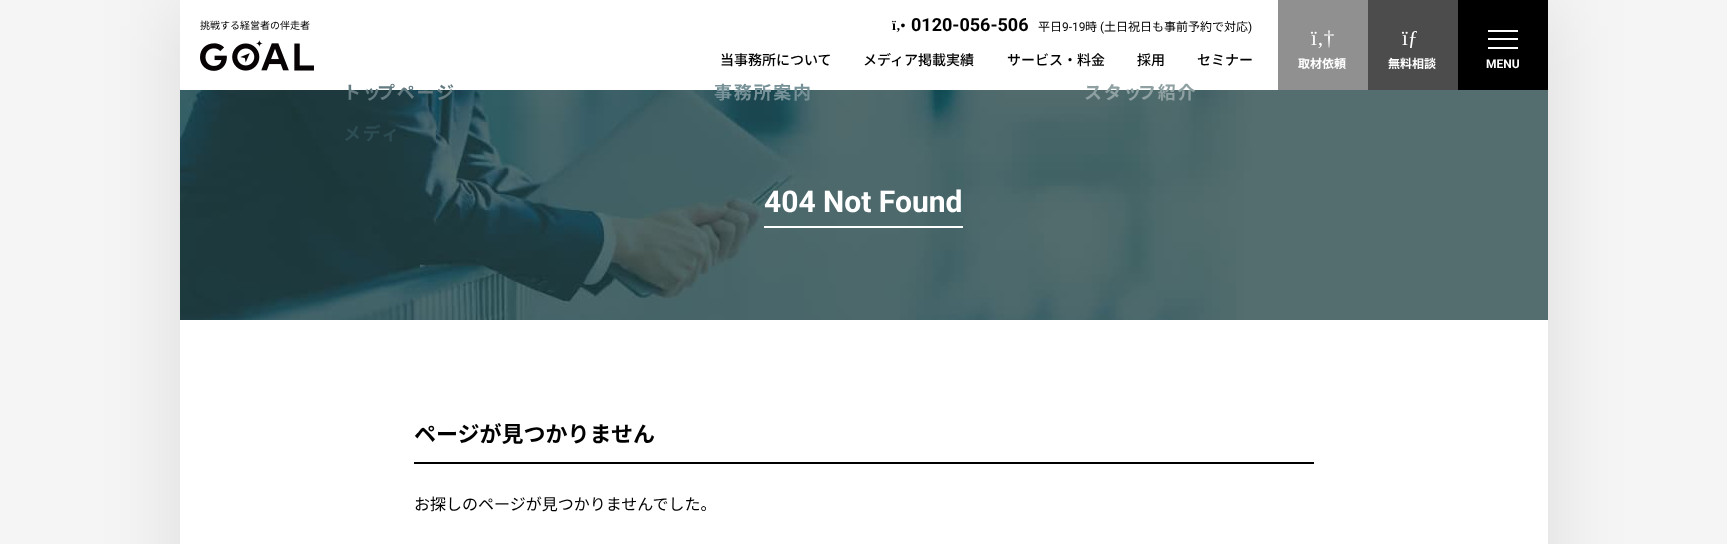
<?xml version="1.0" encoding="UTF-8"?>
<svg xmlns="http://www.w3.org/2000/svg" xmlns:xlink="http://www.w3.org/1999/xlink" width="1727" height="544">
  <rect width="100%" height="100%" fill="#f5f5f5" />
  <rect x="180" width="1368" height="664" fill="#000000" fill-opacity="0.1" filter="blur(40px)" />
  <rect x="180" width="1368" height="544" fill="#ffffff" />
  <image x="200" y="40" width="114" height="31" xlink:href="image1.png" />
  <rect x="1278" width="90" height="90" fill="#909090" />
  <rect x="1368" width="90" height="90" fill="#4c4c4c" />
  <rect x="1458" width="90" height="90" fill="#000000" />
  <rect x="1488" y="30" width="30" height="2" fill="#ffffff" />
  <rect x="1488" y="38" width="30" height="2" fill="#ffffff" />
  <rect x="1488" y="47" width="30" height="2" fill="#ffffff" />
  <image x="180" y="90" width="1368" height="230" xlink:href="image2.png" />
  <rect x="764" y="226" width="199" height="2" fill="#ffffff" />
  <rect x="414" y="462" width="900" height="2" fill="#000000" />
  <text x="200" y="29" style="font-family: Noto Sans JP; font-size: 10px; fill: #000000">挑戦する経営者の伴走者</text>
  <text x="892" y="30" style="font-family: Liberation Serif; font-size: 14px; font-weight: bold; fill: #000000">ï‚•</text>
  <text x="911" y="31" style="font-family: Roboto; font-size: 18px; font-weight: bold; fill: #000000">0120-056-506</text>
  <text x="1038" y="31" style="font-family: Noto Sans JP; font-size: 12px; fill: #000000">平日</text>
  <text x="1062" y="31" style="font-family: Roboto; font-size: 12px; fill: #000000">9-19</text>
  <text x="1085" y="31" style="font-family: Noto Sans JP; font-size: 12px; fill: #000000">時</text>
  <text x="1100" y="31" style="font-family: Roboto; font-size: 12px; fill: #000000">(</text>
  <text x="1104" y="31" style="font-family: Noto Sans JP; font-size: 12px; fill: #000000">土日祝日も事前予約で対応</text>
  <text x="1248" y="31" style="font-family: Roboto; font-size: 12px; fill: #000000">)</text>
  <text x="720" y="65" style="font-family: Noto Sans JP; font-size: 14px; font-weight: 500; fill: #000000">当事務所について</text>
  <text x="863" y="65" style="font-family: Noto Sans JP; font-size: 14px; font-weight: 500; fill: #000000">メディア掲載実績</text>
  <text x="1007" y="65" style="font-family: Noto Sans JP; font-size: 14px; font-weight: 500; fill: #000000">サービス・料金</text>
  <text x="1137" y="65" style="font-family: Noto Sans JP; font-size: 14px; font-weight: 500; fill: #000000">採用</text>
  <text x="1197" y="65" style="font-family: Noto Sans JP; font-size: 14px; font-weight: 500; fill: #000000">セミナー</text>
  <text x="1311" y="45" style="font-family: Liberation Serif; font-size: 21px; fill: #ffffff">ï‚†</text>
  <text x="1298" y="68" style="font-family: Noto Sans JP; font-size: 12px; font-weight: bold; fill: #ffffff">取材依頼</text>
  <text x="1402" y="45" style="font-family: Liberation Serif; font-size: 21px; fill: #ffffff">ïƒ</text>
  <text x="1388" y="68" style="font-family: Noto Sans JP; font-size: 12px; font-weight: bold; fill: #ffffff">無料相談</text>
  <text x="1486" y="68" style="font-family: Roboto; font-size: 12px; font-weight: bold; fill: #ffffff">MENU</text>
  <text x="343" y="99" style="font-family: Noto Sans JP; font-size: 18px; font-weight: bold; letter-spacing: 1.75px; fill: #647c81">トッ</text>
  <text x="377" y="99" style="font-family: Noto Sans JP; font-size: 18px; font-weight: bold; letter-spacing: 1.75px; fill: #647c81">プページ</text>
  <text x="714" y="99" style="font-family: Noto Sans JP; font-size: 18px; font-weight: bold; letter-spacing: 1.75px; fill: #769197">事務所案内</text>
  <text x="1084" y="99" style="font-family: Noto Sans JP; font-size: 18px; font-weight: bold; letter-spacing: 1.75px; fill: #8ea0a1">スタッ</text>
  <text x="1138" y="99" style="font-family: Noto Sans JP; font-size: 18px; font-weight: bold; letter-spacing: 1.75px; fill: #8ea0a1">フ紹介</text>
  <text x="343" y="140" style="font-family: Noto Sans JP; font-size: 18px; font-weight: bold; letter-spacing: 1.75px; fill: #2d4d54">メディ</text>
  <text x="764" y="212" style="font-family: Roboto; font-size: 30px; font-weight: bold; fill: #ffffff">404 Not Found</text>
  <text x="414" y="442" style="font-family: Noto Sans JP; font-size: 22px; font-weight: bold; fill: #000000">ページが見つかりません</text>
  <text x="414" y="510" style="font-family: Noto Sans JP; font-size: 16px; fill: #000000">お探しのページが見つかりませんでした。</text>
</svg>
